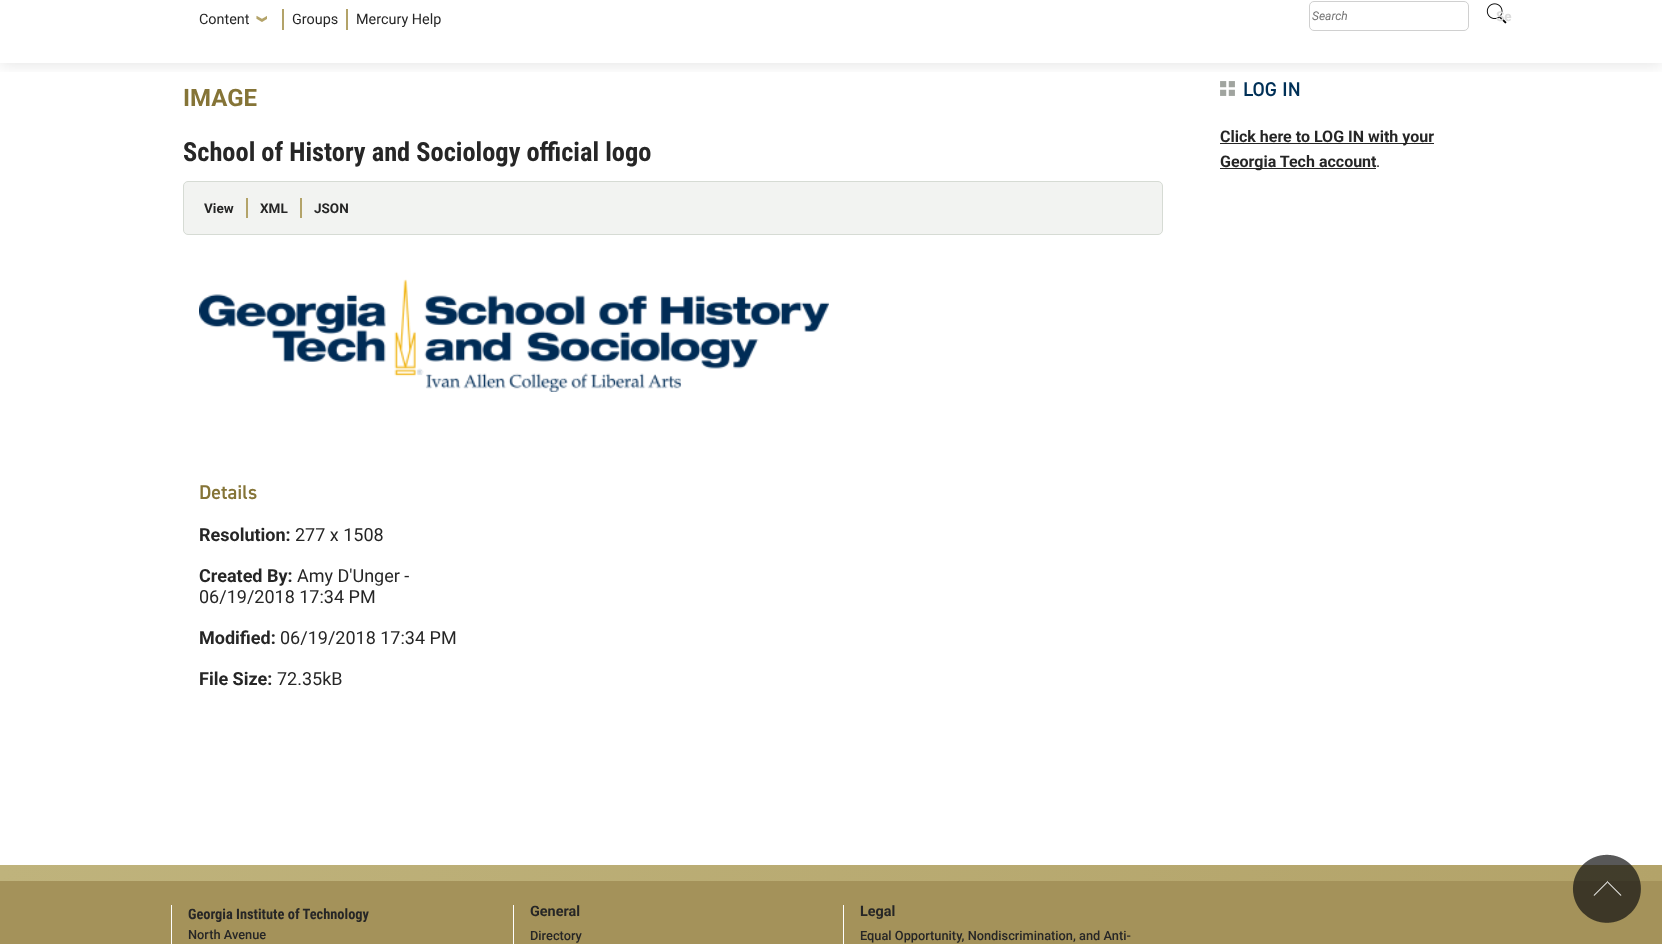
<?xml version="1.0" encoding="UTF-8"?>
<svg xmlns="http://www.w3.org/2000/svg" xmlns:xlink="http://www.w3.org/1999/xlink" width="1662" height="944">
  <defs>
    <clipPath id="clip1"><rect x="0" y="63" width="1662" height="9" /></clipPath>
    <linearGradient id="g1" gradientUnits="userSpaceOnUse" x1="0" y1="873" x2="1662" y2="873"><stop offset="0" stop-color="#bfb37c" /><stop offset="1" stop-color="#b3a369" /></linearGradient>
  </defs>
  <rect width="100%" height="100%" fill="#ffffff" />
  <g clip-path="url(#clip1)">
    <rect y="-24" width="1662" height="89" fill="#000000" fill-opacity="0.1" filter="blur(8px)" />
  </g>
  <rect x="282" y="9" width="2" height="21" fill="#b3a369" />
  <image x="256" y="15" width="11" height="7" xlink:href="image1.png" />
  <rect x="346" y="9" width="2" height="21" fill="#b3a369" />
  <rect x="1309.5" y="1.5" width="159" height="29" rx="4.5" fill="none" stroke="#d0d0d0" />
  <image x="1486" y="3" width="21" height="21" xlink:href="image2.png" />
  <rect x="183.5" y="181.5" width="979" height="53" rx="4.5" fill="#f2f3f1" stroke="#d6dbd4" />
  <rect x="246" y="198" width="2" height="20" fill="#b3a369" />
  <rect x="300" y="198" width="2" height="20" fill="#b3a369" />
  <image x="199" y="279" width="630" height="113" xlink:href="image3.png" />
  <image x="1220" y="81" width="15" height="15" xlink:href="image4.png" />
  <rect x="1220" y="143" width="214" height="1" fill="#262626" />
  <rect x="1220" y="168" width="156" height="1" fill="#262626" />
  <rect y="865" width="1662" height="16" fill="url(#g1)" />
  <rect y="881" width="1662" height="63" fill="#a4925a" />
  <rect x="171" y="905" width="1" height="39" fill="#ffffff" />
  <rect x="513" y="905" width="1" height="39" fill="#ffffff" />
  <rect x="843" y="905" width="1" height="39" fill="#ffffff" />
  <image x="1572" y="854" width="69" height="69" xlink:href="image5.png" />
  <text x="199" y="24" style="font-family: Roboto; font-size: 14.4px; fill: #262626">Content</text>
  <text x="292" y="24" style="font-family: Roboto; font-size: 14.4px; fill: #262626">Groups</text>
  <text x="356" y="24" style="font-family: Roboto; font-size: 14.4px; fill: #262626">Mercury Help</text>
  <text x="1312" y="20" style="font-family: Roboto; font-size: 12px; font-style: italic; fill: #757575">Search</text>
  <text x="1496" y="21" style="font-family: Roboto; font-size: 13.5px; font-weight: bold; fill: #dcdcdc">Se</text>
  <text x="183" y="106" style="font-family: Roboto; font-size: 24px; font-weight: bold; fill: #857437">IMAGE</text>
  <text x="183" y="161" style="font-family: Roboto Condensed; font-size: 26.4px; font-weight: bold; fill: #262626">School of History and Sociology official logo</text>
  <text x="204" y="213" style="font-family: Roboto; font-size: 13.5px; font-weight: bold; fill: #262626">View</text>
  <text x="260" y="213" style="font-family: Roboto; font-size: 13.5px; font-weight: bold; fill: #262626">XML</text>
  <text x="314" y="213" style="font-family: Roboto; font-size: 13.5px; font-weight: bold; fill: #262626">JSON</text>
  <text x="199" y="499" style="font-family: 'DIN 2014'; font-size: 20px; font-weight: 600; fill: #857437">Details</text>
  <text x="199" y="541" style="font-family: Roboto; font-size: 18px; font-weight: bold; fill: #262626">Resolution:</text>
  <text x="295" y="541" style="font-family: Roboto; font-size: 18px; fill: #262626">277 x 1508</text>
  <text x="199" y="582" style="font-family: Roboto; font-size: 18px; font-weight: bold; fill: #262626">Created By:</text>
  <text x="297" y="582" style="font-family: Roboto; font-size: 18px; fill: #262626">Amy D'Unger -</text>
  <text x="199" y="603" style="font-family: Roboto; font-size: 18px; fill: #262626">06/19/2018 17:34 PM</text>
  <text x="199" y="644" style="font-family: Roboto; font-size: 18px; font-weight: bold; fill: #262626">Modified:</text>
  <text x="280" y="644" style="font-family: Roboto; font-size: 18px; fill: #262626">06/19/2018 17:34 PM</text>
  <text x="199" y="685" style="font-family: Roboto; font-size: 18px; font-weight: bold; fill: #262626">File Size:</text>
  <text x="277" y="685" style="font-family: Roboto; font-size: 18px; fill: #262626">72.35kB</text>
  <text x="1243" y="96" style="font-family: 'DIN 2014'; font-size: 20px; font-weight: 600; fill: #003057">LOG IN</text>
  <text x="1220" y="142" style="font-family: Roboto; font-size: 16px; font-weight: bold; fill: #262626">Click here to LOG IN with your</text>
  <text x="1220" y="167" style="font-family: Roboto; font-size: 16px; font-weight: bold; fill: #262626">Georgia Tech account</text>
  <text x="1376" y="167" style="font-family: Roboto; font-size: 16px; fill: #262626">.</text>
  <text x="188" y="919" style="font-family: Roboto Condensed; font-size: 14.4px; font-weight: bold; fill: #262626">Georgia Institute of Technology</text>
  <text x="188" y="939" style="font-family: Roboto; font-size: 12.8px; font-weight: 500; fill: #262626">North Avenue</text>
  <text x="530" y="916" style="font-family: Roboto; font-size: 14.4px; font-weight: bold; fill: #262626">General</text>
  <text x="530" y="940" style="font-family: Roboto; font-size: 12.8px; font-weight: 500; fill: #262626">Directory</text>
  <text x="860" y="916" style="font-family: Roboto; font-size: 14.4px; font-weight: bold; fill: #262626">Legal</text>
  <text x="860" y="940" style="font-family: Roboto; font-size: 12.8px; font-weight: 500; fill: #262626">Equal Opportunity, Nondiscrimination, and Anti-</text>
</svg>
